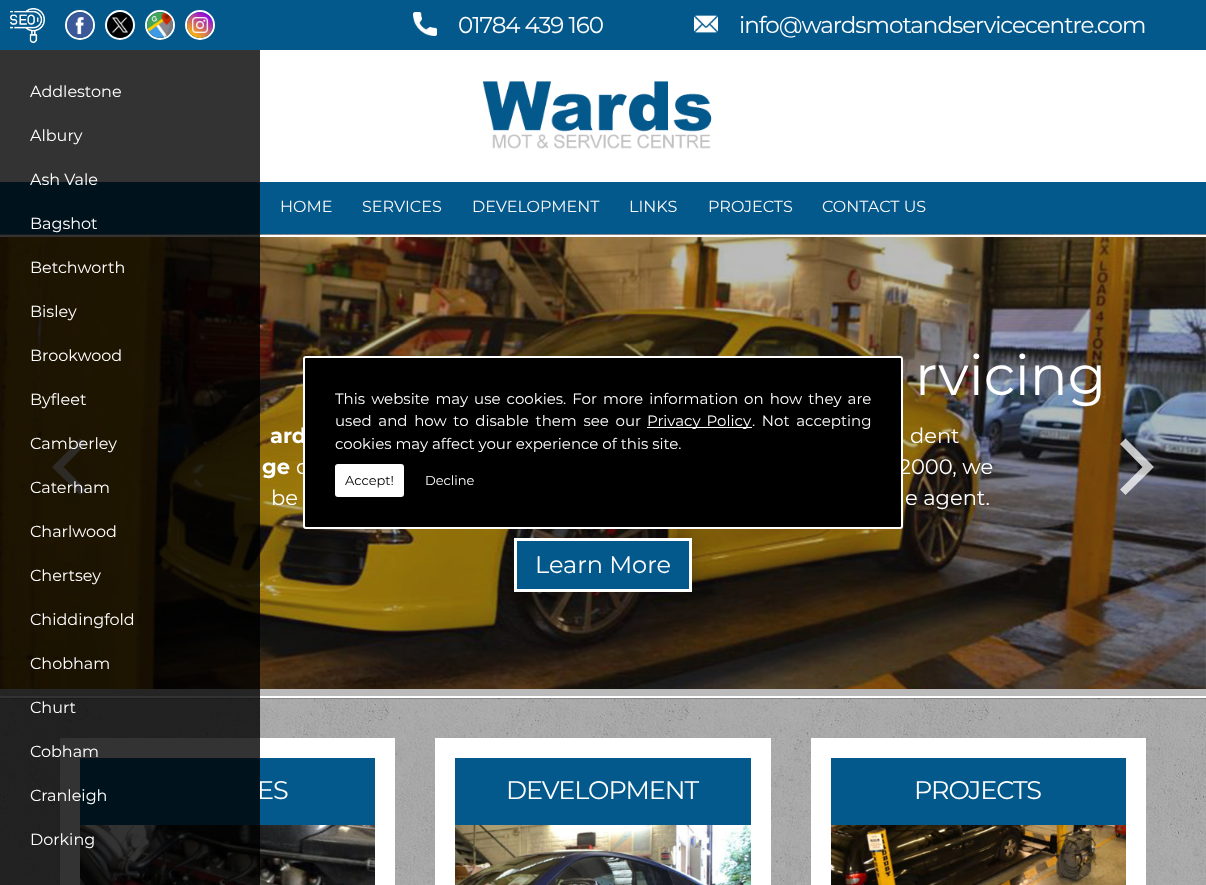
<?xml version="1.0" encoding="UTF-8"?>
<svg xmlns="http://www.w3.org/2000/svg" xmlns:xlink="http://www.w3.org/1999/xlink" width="1206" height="885">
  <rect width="100%" height="100%" fill="#e3e3e3" />
  <image x="0" y="234" width="1206" height="651" xlink:href="image1.png" />
  <rect width="1206" height="50" fill="#04598c" />
  <image x="10" y="8" width="35" height="35" xlink:href="image2.png" />
  <rect y="50" width="1206" height="132" fill="#ffffff" />
  <image x="482" y="81" width="230" height="68" xlink:href="image3.png" />
  <circle cx="80" cy="25" r="14" fill="none" stroke="#ffffff" stroke-width="2" />
  <circle cx="120" cy="25" r="14" fill="none" stroke="#ffffff" stroke-width="2" />
  <circle cx="160" cy="25" r="14" fill="none" stroke="#ffffff" stroke-width="2" />
  <circle cx="200" cy="25" r="14" fill="none" stroke="#ffffff" stroke-width="2" />
  <image x="67" y="12" width="26" height="26" xlink:href="image4.png" />
  <image x="107" y="12" width="26" height="26" xlink:href="image5.png" />
  <image x="147" y="12" width="26" height="26" xlink:href="image6.png" />
  <image x="187" y="12" width="26" height="26" xlink:href="image7.png" />
  <image x="413" y="12" width="24" height="24" xlink:href="image8.png" />
  <image x="694" y="15" width="24" height="18" xlink:href="image9.png" />
  <rect y="183" width="1206" height="52" fill="#000000" fill-opacity="0.2" filter="blur(0.5px)" />
  <rect y="182" width="1206" height="52" fill="#04598c" />
  <rect y="236" width="1206" height="463" fill="#000000" fill-opacity="0.2" filter="blur(0.5px)" />
  <rect y="235" width="1206" height="463" fill="#ffffff" />
  <image x="0" y="237" width="1206" height="452" xlink:href="image10.png" />
  <rect y="237" width="1206" height="459" fill="#1e1e1e" fill-opacity="0.3" />
  <rect x="514" y="538" width="178" height="54" fill="#000000" fill-opacity="0.14" filter="blur(15px)" />
  <rect x="514" y="538" width="178" height="54" fill="#000000" fill-opacity="0.12" filter="blur(10px)" />
  <rect x="515.5" y="539.5" width="175" height="51" fill="#04598c" stroke="#ffffff" stroke-width="3" />
  <path d="M 80.5 495 l -28.5 -28 h 11.5 l 22.5 22.5 z m -28.5 -28 l 28.5 -28.5 l 5.5 5.5 l -22.5 23 z" fill="#ffffff" fill-opacity="0.75" />
  <path d="M 1125.5 438.5 l 28.5 28.5 h -11.5 l -22.5 -23 z m 28.5 28.5 l -28.5 28 l -5.5 -5.5 l 22.5 -22.5 z" fill="#ffffff" fill-opacity="0.75" />
  <rect x="60" y="739" width="335" height="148" fill="#000000" fill-opacity="0.2" filter="blur(0.5px)" />
  <rect x="80" y="758" width="295" height="67" fill="#04598c" />
  <rect x="70" y="748" width="315" height="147" fill="none" stroke="#ffffff" stroke-width="20" />
  <image x="80" y="825" width="295" height="60" xlink:href="image11.png" />
  <rect x="435" y="739" width="336" height="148" fill="#000000" fill-opacity="0.2" filter="blur(0.5px)" />
  <rect x="455" y="758" width="296" height="67" fill="#04598c" />
  <rect x="445" y="748" width="316" height="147" fill="none" stroke="#ffffff" stroke-width="20" />
  <image x="455" y="825" width="296" height="60" xlink:href="image12.png" />
  <rect x="811" y="739" width="335" height="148" fill="#000000" fill-opacity="0.2" filter="blur(0.5px)" />
  <rect x="831" y="758" width="295" height="67" fill="#04598c" />
  <rect x="821" y="748" width="315" height="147" fill="none" stroke="#ffffff" stroke-width="20" />
  <image x="831" y="825" width="295" height="60" xlink:href="image13.png" />
  <text x="458" y="33" style="font-family: Montserrat; font-size: 23px; letter-spacing: -1px; fill: #ffffff">01784 439 160</text>
  <text x="739" y="33" style="font-family: Montserrat; font-size: 23px; letter-spacing: -1px; fill: #ffffff">info@wardsmotandservicecentre.com</text>
  <text x="280" y="212" style="font-family: Montserrat; font-size: 16px; fill: #f8f8f8">HOME</text>
  <text x="362" y="212" style="font-family: Montserrat; font-size: 16px; fill: #f8f8f8">SERVICES</text>
  <text x="472" y="212" style="font-family: Montserrat; font-size: 16px; fill: #f8f8f8">DEVELOPMENT</text>
  <text x="629" y="212" style="font-family: Montserrat; font-size: 16px; fill: #f8f8f8">LINKS</text>
  <text x="708" y="212" style="font-family: Montserrat; font-size: 16px; fill: #f8f8f8">PROJECTS</text>
  <text x="822" y="212" style="font-family: Montserrat; font-size: 16px; fill: #f8f8f8">CONTACT US</text>
  <text x="915" y="395" style="font-family: Montserrat; font-size: 56px; fill: #ffffff">rvicing</text>
  <text x="270" y="443" style="font-family: Montserrat; font-size: 21px; font-weight: bold; fill: #ffffff">ard</text>
  <text x="910" y="443" style="font-family: Montserrat; font-size: 21px; fill: #ffffff">dent</text>
  <text x="262" y="474" style="font-family: Montserrat; font-size: 21px; font-weight: bold; fill: #ffffff">ge</text>
  <text x="296" y="474" style="font-family: Montserrat; font-size: 21px; fill: #ffffff">c</text>
  <text x="899" y="474" style="font-family: Montserrat; font-size: 21px; fill: #ffffff">2000, we</text>
  <text x="271" y="505" style="font-family: Montserrat; font-size: 21px; fill: #ffffff">be</text>
  <text x="905" y="505" style="font-family: Montserrat; font-size: 21px; fill: #ffffff">e agent.</text>
  <text x="535" y="573" style="font-family: Montserrat; font-size: 24px; fill: #ffffff">Learn More</text>
  <text x="257" y="799" style="font-family: Montserrat; font-size: 25.5px; letter-spacing: -1px; fill: #ffffff">ES</text>
  <rect y="50" width="260" height="835" fill="#000000" fill-opacity="0.8" />
  <text x="30" y="845" style="font-family: Montserrat; font-size: 16px; fill: #ffffff">Dorking</text>
  <text x="30" y="801" style="font-family: Montserrat; font-size: 16px; fill: #ffffff">Cranleigh</text>
  <text x="30" y="757" style="font-family: Montserrat; font-size: 16px; fill: #ffffff">Cobham</text>
  <text x="30" y="713" style="font-family: Montserrat; font-size: 16px; fill: #ffffff">Churt</text>
  <text x="30" y="669" style="font-family: Montserrat; font-size: 16px; fill: #ffffff">Chobham</text>
  <text x="30" y="625" style="font-family: Montserrat; font-size: 16px; fill: #ffffff">Chiddingfold</text>
  <text x="30" y="581" style="font-family: Montserrat; font-size: 16px; fill: #ffffff">Chertsey</text>
  <text x="30" y="537" style="font-family: Montserrat; font-size: 16px; fill: #ffffff">Charlwood</text>
  <text x="30" y="493" style="font-family: Montserrat; font-size: 16px; fill: #ffffff">Caterham</text>
  <text x="30" y="449" style="font-family: Montserrat; font-size: 16px; fill: #ffffff">Camberley</text>
  <text x="30" y="405" style="font-family: Montserrat; font-size: 16px; fill: #ffffff">Byfleet</text>
  <text x="30" y="361" style="font-family: Montserrat; font-size: 16px; fill: #ffffff">Brookwood</text>
  <text x="30" y="317" style="font-family: Montserrat; font-size: 16px; fill: #ffffff">Bisley</text>
  <text x="30" y="273" style="font-family: Montserrat; font-size: 16px; fill: #ffffff">Betchworth</text>
  <text x="30" y="229" style="font-family: Montserrat; font-size: 16px; fill: #ffffff">Bagshot</text>
  <text x="30" y="185" style="font-family: Montserrat; font-size: 16px; fill: #ffffff">Ash Vale</text>
  <text x="30" y="141" style="font-family: Montserrat; font-size: 16px; fill: #ffffff">Albury</text>
  <text x="30" y="97" style="font-family: Montserrat; font-size: 16px; fill: #ffffff">Addlestone</text>
  <text x="506" y="799" style="font-family: Montserrat; font-size: 25.5px; letter-spacing: -1px; fill: #ffffff">DEVELOPMENT</text>
  <text x="914" y="799" style="font-family: Montserrat; font-size: 25.5px; letter-spacing: -1px; fill: #ffffff">PROJECTS</text>
  <rect x="304" y="357" width="598" height="171" rx="2" fill="#000000" stroke="#ffffff" stroke-width="2" />
  <text x="335" y="404" word-spacing="2.1" style="font-family: Montserrat; font-size: 15px; fill: #ffffff">This website may use cookies. For more information on how they are</text>
  <text x="335" y="426" word-spacing="2.75" style="font-family: Montserrat; font-size: 15px; fill: #ffffff">used and how to disable them see our</text>
  <rect x="647" y="427" width="105" height="1" fill="#ffffff" />
  <text x="647" y="426" word-spacing="2" style="font-family: Montserrat; font-size: 15px; fill: #ffffff">Privacy Policy</text>
  <text x="752" y="426" word-spacing="2.75" style="font-family: Montserrat; font-size: 15px; fill: #ffffff">. Not accepting</text>
  <text x="335" y="449" style="font-family: Montserrat; font-size: 15px; fill: #ffffff">cookies may affect your experience of this site.</text>
  <rect x="335" y="464" width="69" height="33" rx="3" fill="#ffffff" />
  <text x="345" y="485" style="font-family: Montserrat; font-size: 13px; fill: #000000">Accept!</text>
  <text x="425" y="485" style="font-family: Montserrat; font-size: 13px; fill: #ffffff">Decline</text>
</svg>
